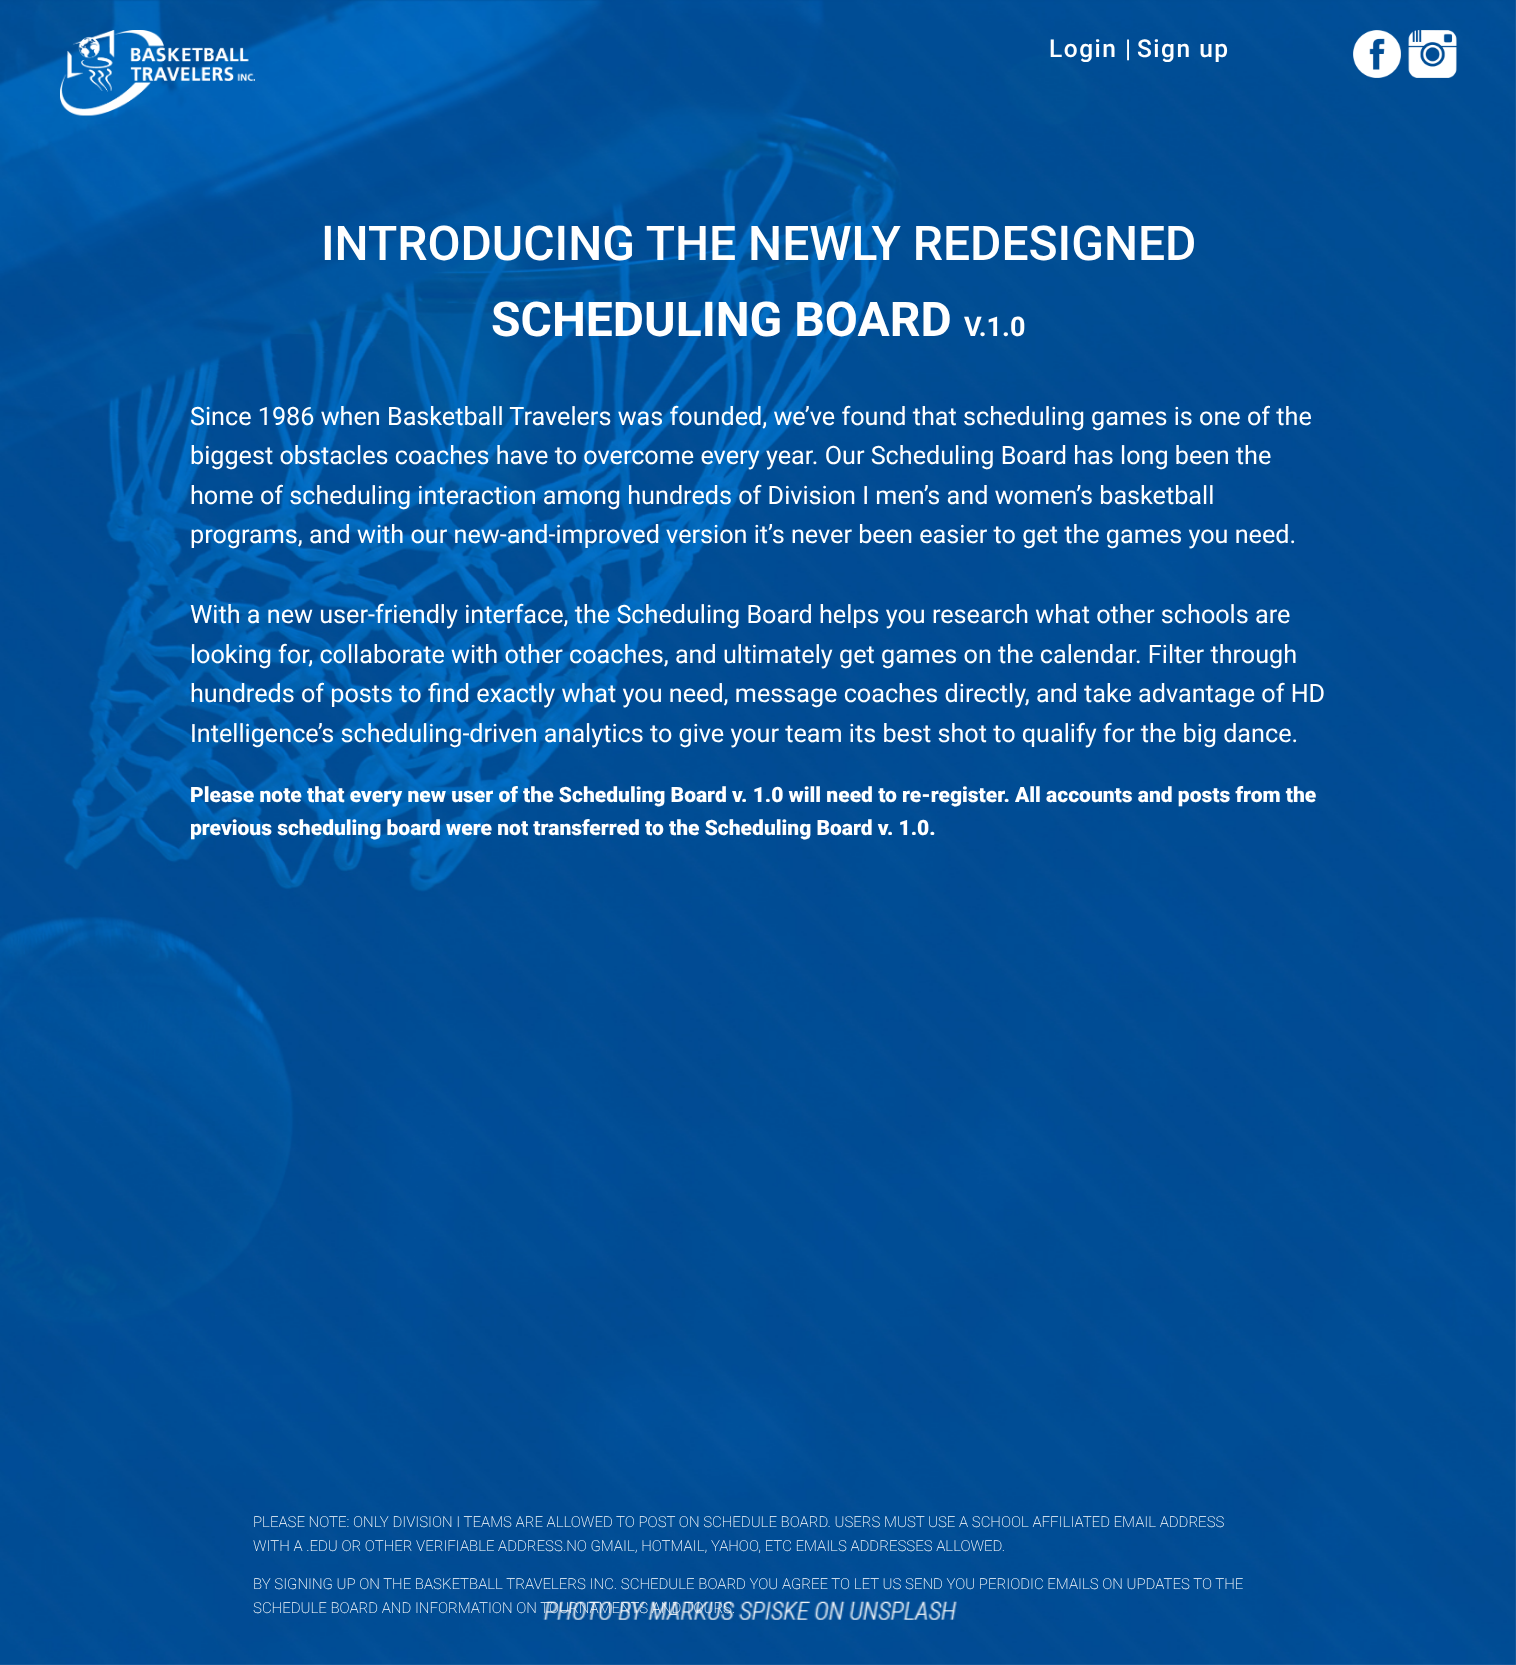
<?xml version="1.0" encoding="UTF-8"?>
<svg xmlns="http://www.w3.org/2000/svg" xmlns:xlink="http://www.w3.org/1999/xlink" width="1516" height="1665">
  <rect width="100%" height="100%" fill="#ffffff" />
  <image x="0" y="0" width="1516" height="1665" xlink:href="image1.png" />
  <image x="60" y="30" width="195" height="86" xlink:href="image2.png" />
  <image x="1353" y="30" width="48" height="48" xlink:href="image3.png" />
  <image x="1408" y="30" width="49" height="48" xlink:href="image4.png" />
  <text x="1049" y="57" style="font-family: Roboto; font-size: 24.5px; font-weight: 500; letter-spacing: 1.5px; fill: #ffffff">Login |</text>
  <text x="1137" y="57" style="font-family: Roboto; font-size: 24.5px; font-weight: 500; letter-spacing: 1.5px; fill: #ffffff">Sign up</text>
  <text x="321" y="260" style="font-family: Roboto; font-size: 48px; font-weight: 500; fill: #ffffff">INTRODUCING THE NEWLY REDESIGNED</text>
  <text x="491" y="336" style="font-family: Roboto; font-size: 48px; font-weight: bold; fill: #ffffff">SCHEDULING BOARD</text>
  <text x="964" y="336" style="font-family: Roboto; font-size: 27px; font-weight: bold; fill: #ffffff">V.1.0</text>
  <text x="190" y="425" style="font-family: Roboto; font-size: 25.2px; fill: #ffffff">Since 1986 when Basketball Travelers was founded, we’ve found that scheduling games is one of the</text>
  <text x="190" y="464" style="font-family: Roboto; font-size: 25.2px; fill: #ffffff">biggest obstacles coaches have to overcome every year. Our Scheduling Board has long been the</text>
  <text x="190" y="504" style="font-family: Roboto; font-size: 25.2px; fill: #ffffff">home of scheduling interaction among hundreds of Division I men’s and women’s basketball</text>
  <text x="190" y="543" style="font-family: Roboto; font-size: 25.2px; fill: #ffffff">programs, and with our new-and-improved version it’s never been easier to get the games you need.</text>
  <text x="190" y="623" style="font-family: Roboto; font-size: 25.2px; fill: #ffffff">With a new user-friendly interface, the Scheduling Board helps you research what other schools are</text>
  <text x="190" y="663" style="font-family: Roboto; font-size: 25.2px; fill: #ffffff">looking for, collaborate with other coaches, and ultimately get games on the calendar. Filter through</text>
  <text x="190" y="702" style="font-family: Roboto; font-size: 25.2px; fill: #ffffff">hundreds of posts to find exactly what you need, message coaches directly, and take advantage of HD</text>
  <text x="190" y="742" style="font-family: Roboto; font-size: 25.2px; fill: #ffffff">Intelligence’s scheduling-driven analytics to give your team its best shot to qualify for the big dance.</text>
  <text x="190" y="802" style="font-family: Roboto; font-size: 21px; font-weight: 900; fill: #ffffff">Please note that every new user of the Scheduling Board v. 1.0 will need to re-register. All accounts and posts from the</text>
  <text x="190" y="835" style="font-family: Roboto; font-size: 21px; font-weight: 900; fill: #ffffff">previous scheduling board were not transferred to the Scheduling Board v. 1.0.</text>
  <text x="253" y="1527" style="font-family: Roboto; font-size: 15px; font-weight: 200; fill: #ffffff">PLEASE NOTE: ONLY DIVISION I TEAMS ARE ALLOWED TO POST ON SCHEDULE BOARD. USERS MUST USE A SCHOOL AFFILIATED EMAIL ADDRESS</text>
  <text x="253" y="1551" style="font-family: Roboto; font-size: 15px; font-weight: 200; fill: #ffffff">WITH A .EDU OR OTHER VERIFIABLE ADDRESS.NO GMAIL, HOTMAIL, YAHOO, ETC EMAILS ADDRESSES ALLOWED.</text>
  <text x="253" y="1589" style="font-family: Roboto; font-size: 15px; font-weight: 200; fill: #ffffff">BY SIGNING UP ON THE BASKETBALL TRAVELERS INC. SCHEDULE BOARD YOU AGREE TO LET US SEND YOU PERIODIC EMAILS ON UPDATES TO THE</text>
  <text x="253" y="1613" style="font-family: Roboto; font-size: 15px; font-weight: 200; fill: #ffffff">SCHEDULE BOARD AND INFORMATION ON TOURNAMENTS AND TOURS.</text>
</svg>
